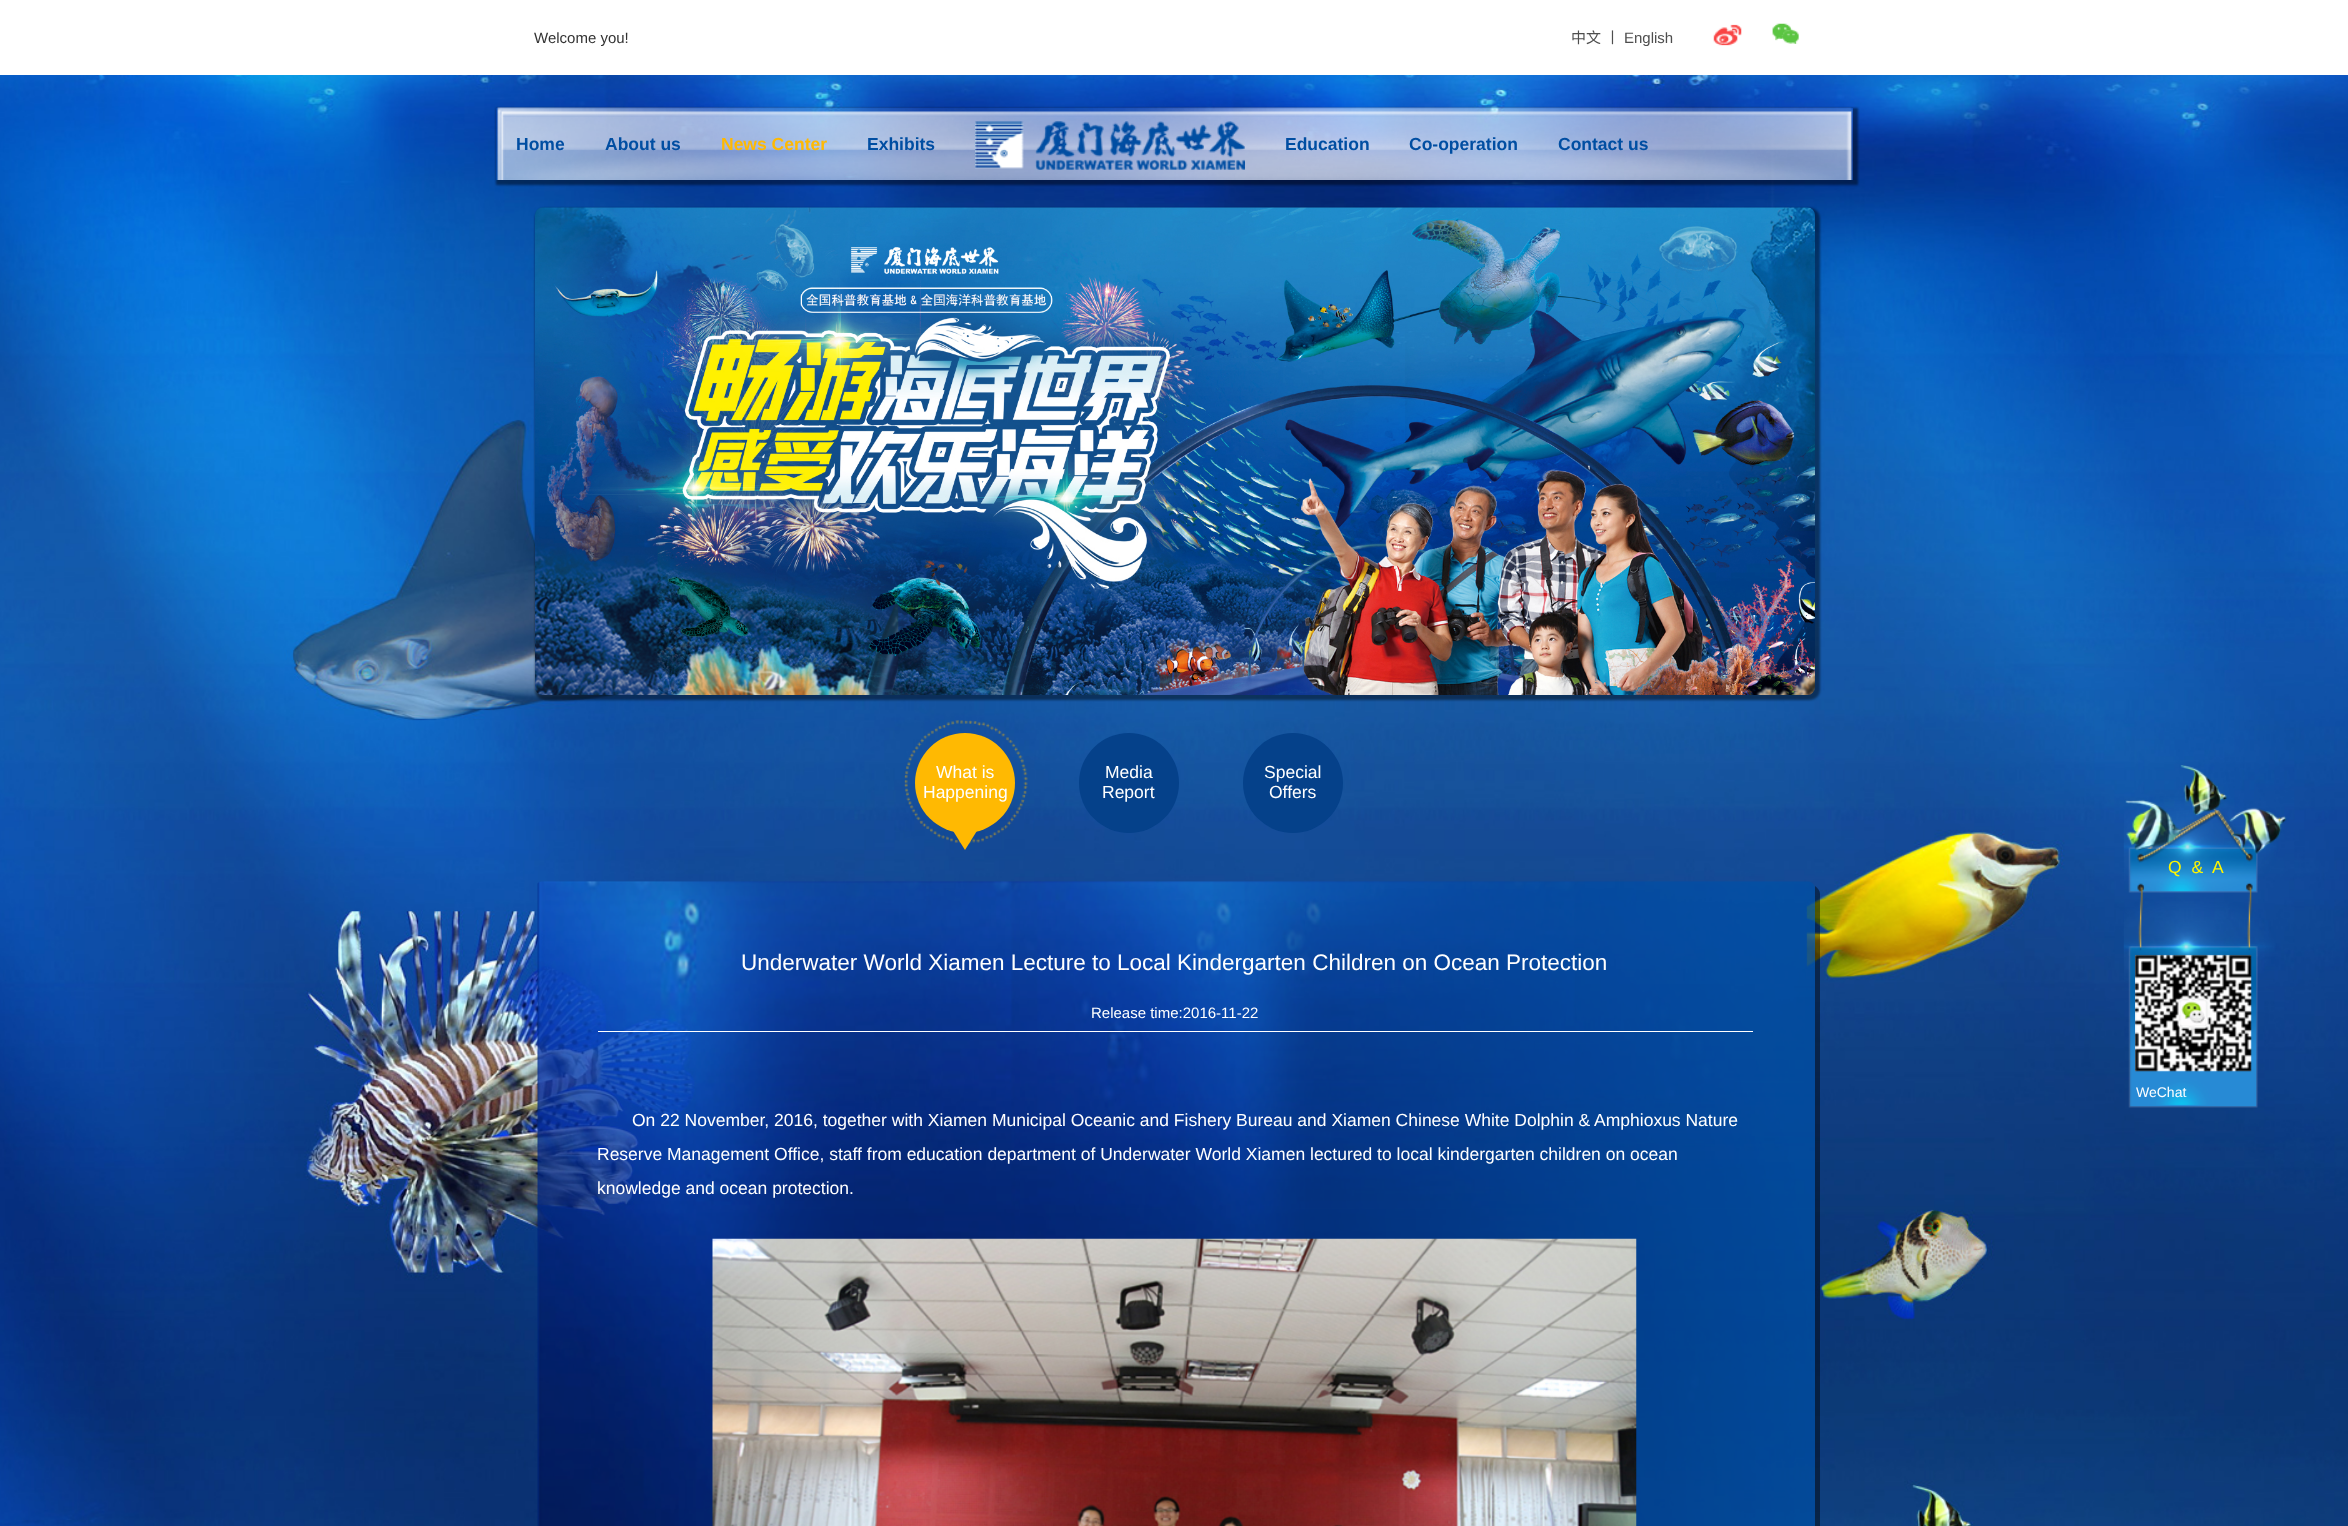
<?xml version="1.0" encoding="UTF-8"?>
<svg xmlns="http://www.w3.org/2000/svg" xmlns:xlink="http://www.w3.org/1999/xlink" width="2348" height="1526">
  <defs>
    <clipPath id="clip1"><path d="M 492 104 h 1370 v 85 h -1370 z m 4 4 h 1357 v 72 h -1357 z" clip-rule="evenodd" /></clipPath>
  </defs>
  <rect width="100%" height="100%" fill="#ffffff" />
  <image x="0" y="75" width="2348" height="1451" xlink:href="image1.png" />
  <image x="1713" y="24" width="29" height="22" xlink:href="image2.png" />
  <image x="1772" y="23" width="27" height="21" xlink:href="image3.png" />
  <g clip-path="url(#clip1)">
    <rect x="496" y="108" width="1362" height="77" fill="#000000" fill-opacity="0.44" filter="blur(1px)" />
  </g>
  <image x="497" y="107" width="1356" height="73" xlink:href="image4.png" />
  <image x="975" y="121" width="270" height="49" xlink:href="image5.png" />
  <rect x="535" y="208" width="1285" height="492" rx="10" fill="#000000" fill-opacity="0.44" filter="blur(1px)" />
  <image x="535" y="207" width="1280" height="488" xlink:href="image6.png" />
  <image x="904" y="720" width="124" height="124" xlink:href="image7.png" />
  <circle cx="965" cy="783" r="50" fill="#ffb902" />
  <path d="M 952.5 830 h 25 l -12.5 20 z" fill="#ffb902" />
  <circle cx="1129" cy="783" r="50" fill="#05418a" />
  <circle cx="1293" cy="783" r="50" fill="#05418a" />
  <path d="M 540 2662 c 1 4 4 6 8 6 h 1264 c 4 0 8 -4 8 -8 v -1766 c 0 -3 -2 -6 -5 -8 v 3 v 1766 c 0 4 -3 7 -7 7 z" fill="#000000" fill-opacity="0.44" />
  <image x="537" y="881" width="1278" height="645" xlink:href="image8.png" />
  <rect x="598" y="1031" width="1155" height="1" fill="#ffffff" />
  <image x="712" y="1238" width="925" height="288" xlink:href="image9.png" />
  <image x="2123" y="765" width="164" height="343" xlink:href="image10.png" />
  <image x="2135" y="954" width="117" height="118" xlink:href="image11.png" />
  <text x="534" y="43" style="font-family: Liberation Sans; font-size: 15px; fill: #333333">Welcome you!</text>
  <text x="1571" y="43" style="font-family: Noto Sans CJK SC; font-size: 15px; fill: #4e4e4e">中文</text>
  <text x="1605" y="43" style="font-family: Noto Sans CJK SC; font-size: 15px; fill: #4e4e4e">丨</text>
  <text x="1624" y="43" style="font-family: Liberation Sans; font-size: 15px; fill: #4e4e4e">English</text>
  <text x="516" y="150" style="font-family: Liberation Sans; font-size: 17.5px; font-weight: bold; fill: #004ea2">Home</text>
  <text x="605" y="150" style="font-family: Liberation Sans; font-size: 17.5px; font-weight: bold; fill: #004ea2">About us</text>
  <text x="721" y="150" style="font-family: Liberation Sans; font-size: 17.5px; font-weight: bold; fill: #ffb902">News Center</text>
  <text x="867" y="150" style="font-family: Liberation Sans; font-size: 17.5px; font-weight: bold; fill: #004ea2">Exhibits</text>
  <text x="1285" y="150" style="font-family: Liberation Sans; font-size: 17.5px; font-weight: bold; fill: #004ea2">Education</text>
  <text x="1409" y="150" style="font-family: Liberation Sans; font-size: 17.5px; font-weight: bold; fill: #004ea2">Co-operation</text>
  <text x="1558" y="150" style="font-family: Liberation Sans; font-size: 17.5px; font-weight: bold; fill: #004ea2">Contact us</text>
  <text x="936" y="778" style="font-family: Liberation Sans; font-size: 17.5px; fill: #ffffff">What is</text>
  <text x="923" y="798" style="font-family: Liberation Sans; font-size: 17.5px; fill: #ffffff">Happening</text>
  <text x="1105" y="778" style="font-family: Liberation Sans; font-size: 17.5px; fill: #ffffff">Media</text>
  <text x="1102" y="798" style="font-family: Liberation Sans; font-size: 17.5px; fill: #ffffff">Report</text>
  <text x="1264" y="778" style="font-family: Liberation Sans; font-size: 17.5px; fill: #ffffff">Special</text>
  <text x="1269" y="798" style="font-family: Liberation Sans; font-size: 17.5px; fill: #ffffff">Offers</text>
  <text x="741" y="970" style="font-family: Liberation Sans; font-size: 22.5px; fill: #ffffff">Underwater World Xiamen Lecture to Local Kindergarten Children on Ocean Protection</text>
  <text x="1091" y="1018" style="font-family: Liberation Sans; font-size: 15px; fill: #ffffff">Release time:2016-11-22</text>
  <text x="632" y="1126" style="font-family: Liberation Sans; font-size: 17.5px; fill: #ffffff">On 22 November, 2016, together with Xiamen Municipal Oceanic and Fishery Bureau and Xiamen Chinese White Dolphin &amp; Amphioxus Nature</text>
  <text x="597" y="1160" style="font-family: Liberation Sans; font-size: 17.5px; fill: #ffffff">Reserve Management Office, staff from education department of Underwater World Xiamen lectured to local kindergarten children on ocean</text>
  <text x="597" y="1194" style="font-family: Liberation Sans; font-size: 17.5px; fill: #ffffff">knowledge and ocean protection.</text>
  <text x="2168" y="873" style="font-family: Liberation Sans; font-size: 17.5px; letter-spacing: 2.5px; fill: #fff600">Q &amp; A</text>
  <text x="2136" y="1097" style="font-family: Liberation Sans; font-size: 14px; fill: #ffffff">WeChat</text>
</svg>
